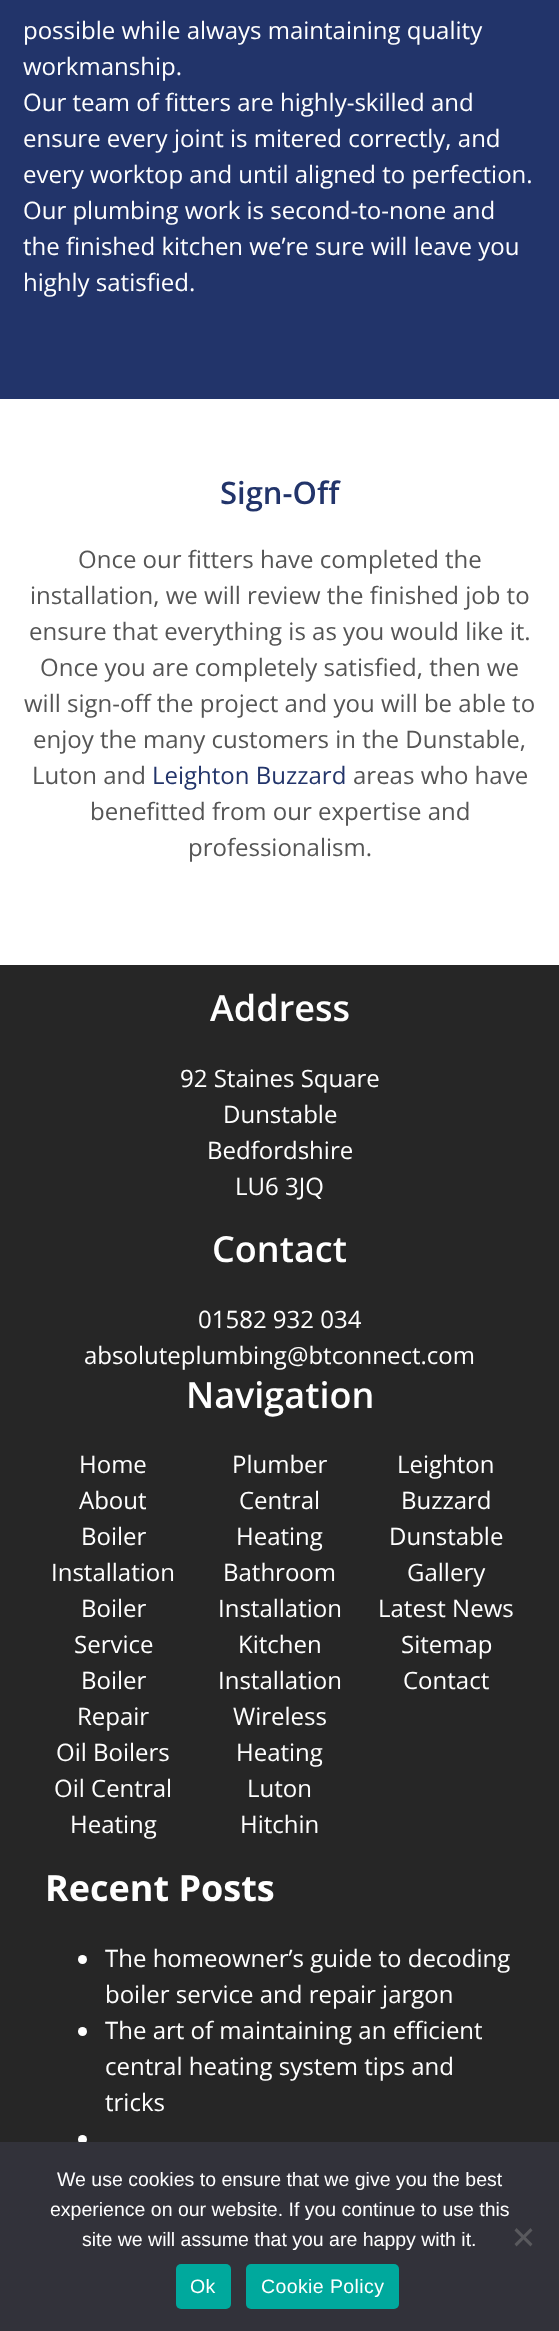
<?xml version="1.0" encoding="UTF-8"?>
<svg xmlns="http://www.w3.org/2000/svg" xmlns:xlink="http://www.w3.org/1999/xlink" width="559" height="2331">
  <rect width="100%" height="100%" fill="#ffffff" />
  <rect width="559" height="399" fill="#22346a" />
  <rect y="965" width="559" height="1177" fill="#262626" />
  <circle cx="82.5" cy="1959.5" r="4.5" fill="#ffffff" />
  <circle cx="82.5" cy="2031.5" r="4.5" fill="#ffffff" />
  <circle cx="82.5" cy="2139.5" r="4.5" fill="#ffffff" />
  <rect y="2142" width="559" height="189" fill="#32323a" />
  <path d="M 530.5 2228 l 2 2.5 l -16 16 l -2 -2.5 z" fill="#59595d" />
  <path d="M 514.5 2230.5 l 2 -2.5 l 16 16 l -2 2.5 z" fill="#59595d" />
  <rect x="176" y="2264" width="55" height="45" rx="5" fill="#00a99d" />
  <rect x="246" y="2264" width="153" height="45" rx="5" fill="#00a99d" />
  <text x="23" y="39" style="font-family: Open Sans; font-size: 24px; fill: #ffffff">possible while always maintaining quality</text>
  <text x="23" y="75" style="font-family: Open Sans; font-size: 24px; fill: #ffffff">workmanship.</text>
  <text x="23" y="111" style="font-family: Open Sans; font-size: 24px; fill: #ffffff">Our team of fitters are highly-skilled and</text>
  <text x="23" y="147" style="font-family: Open Sans; font-size: 24px; fill: #ffffff">ensure every joint is mitered correctly, and</text>
  <text x="23" y="183" style="font-family: Open Sans; font-size: 24px; fill: #ffffff">every worktop and until aligned to perfection.</text>
  <text x="23" y="219" style="font-family: Open Sans; font-size: 24px; fill: #ffffff">Our plumbing work is second-to-none and</text>
  <text x="23" y="255" style="font-family: Open Sans; font-size: 24px; fill: #ffffff">the finished kitchen we’re sure will leave you</text>
  <text x="23" y="291" style="font-family: Open Sans; font-size: 24px; fill: #ffffff">highly satisfied.</text>
  <text x="220" y="504" style="font-family: Open Sans; font-size: 31px; font-weight: 600; fill: #22346a">Sign-Off</text>
  <text x="78" y="568" style="font-family: Open Sans; font-size: 24px; fill: #555555">Once our fitters have completed the</text>
  <text x="30" y="604" style="font-family: Open Sans; font-size: 24px; fill: #555555">installation, we will review the finished job to</text>
  <text x="29" y="640" style="font-family: Open Sans; font-size: 24px; fill: #555555">ensure that everything is as you would like it.</text>
  <text x="40" y="676" style="font-family: Open Sans; font-size: 24px; fill: #555555">Once you are completely satisfied, then we</text>
  <text x="24" y="712" style="font-family: Open Sans; font-size: 24px; fill: #555555">will sign-off the project and you will be able to</text>
  <text x="33" y="748" style="font-family: Open Sans; font-size: 24px; fill: #555555">enjoy the many customers in the Dunstable,</text>
  <text x="32" y="784" style="font-family: Open Sans; font-size: 24px; fill: #555555">Luton and</text>
  <text x="152" y="784" style="font-family: Open Sans; font-size: 24px; fill: #22346a">Leighton Buzzard</text>
  <text x="353" y="784" style="font-family: Open Sans; font-size: 24px; fill: #555555">areas who have</text>
  <text x="90" y="820" style="font-family: Open Sans; font-size: 24px; fill: #555555">benefitted from our expertise and</text>
  <text x="188" y="856" style="font-family: Open Sans; font-size: 24px; fill: #555555">professionalism.</text>
  <text x="210" y="1021" style="font-family: Open Sans; font-size: 36px; font-weight: 600; fill: #ffffff">Address</text>
  <text x="180" y="1087" style="font-family: Open Sans; font-size: 24px; fill: #ffffff">92 Staines Square</text>
  <text x="223" y="1123" style="font-family: Open Sans; font-size: 24px; fill: #ffffff">Dunstable</text>
  <text x="207" y="1159" style="font-family: Open Sans; font-size: 24px; fill: #ffffff">Bedfordshire</text>
  <text x="235" y="1195" style="font-family: Open Sans; font-size: 24px; fill: #ffffff">LU6 3JQ</text>
  <text x="212" y="1262" style="font-family: Open Sans; font-size: 36px; font-weight: 600; fill: #ffffff">Contact</text>
  <text x="198" y="1328" style="font-family: Open Sans; font-size: 24px; fill: #ffffff">01582 932 034</text>
  <text x="84" y="1364" style="font-family: Open Sans; font-size: 24px; fill: #ffffff">absoluteplumbing@btconnect.com</text>
  <text x="186" y="1408" style="font-family: Open Sans; font-size: 36px; font-weight: 600; fill: #ffffff">Navigation</text>
  <text x="79" y="1473" style="font-family: Open Sans; font-size: 24px; fill: #ffffff">Home</text>
  <text x="232" y="1473" style="font-family: Open Sans; font-size: 24px; fill: #ffffff">Plumber</text>
  <text x="397" y="1473" style="font-family: Open Sans; font-size: 24px; fill: #ffffff">Leighton</text>
  <text x="401" y="1509" style="font-family: Open Sans; font-size: 24px; fill: #ffffff">Buzzard</text>
  <text x="79" y="1509" style="font-family: Open Sans; font-size: 24px; fill: #ffffff">About</text>
  <text x="239" y="1509" style="font-family: Open Sans; font-size: 24px; fill: #ffffff">Central</text>
  <text x="236" y="1545" style="font-family: Open Sans; font-size: 24px; fill: #ffffff">Heating</text>
  <text x="81" y="1545" style="font-family: Open Sans; font-size: 24px; fill: #ffffff">Boiler</text>
  <text x="51" y="1581" style="font-family: Open Sans; font-size: 24px; fill: #ffffff">Installation</text>
  <text x="389" y="1545" style="font-family: Open Sans; font-size: 24px; fill: #ffffff">Dunstable</text>
  <text x="223" y="1581" style="font-family: Open Sans; font-size: 24px; fill: #ffffff">Bathroom</text>
  <text x="218" y="1617" style="font-family: Open Sans; font-size: 24px; fill: #ffffff">Installation</text>
  <text x="407" y="1581" style="font-family: Open Sans; font-size: 24px; fill: #ffffff">Gallery</text>
  <text x="81" y="1617" style="font-family: Open Sans; font-size: 24px; fill: #ffffff">Boiler</text>
  <text x="74" y="1653" style="font-family: Open Sans; font-size: 24px; fill: #ffffff">Service</text>
  <text x="378" y="1617" style="font-family: Open Sans; font-size: 24px; fill: #ffffff">Latest News</text>
  <text x="238" y="1653" style="font-family: Open Sans; font-size: 24px; fill: #ffffff">Kitchen</text>
  <text x="218" y="1689" style="font-family: Open Sans; font-size: 24px; fill: #ffffff">Installation</text>
  <text x="401" y="1653" style="font-family: Open Sans; font-size: 24px; fill: #ffffff">Sitemap</text>
  <text x="81" y="1689" style="font-family: Open Sans; font-size: 24px; fill: #ffffff">Boiler</text>
  <text x="77" y="1725" style="font-family: Open Sans; font-size: 24px; fill: #ffffff">Repair</text>
  <text x="403" y="1689" style="font-family: Open Sans; font-size: 24px; fill: #ffffff">Contact</text>
  <text x="56" y="1761" style="font-family: Open Sans; font-size: 24px; fill: #ffffff">Oil Boilers</text>
  <text x="233" y="1725" style="font-family: Open Sans; font-size: 24px; fill: #ffffff">Wireless</text>
  <text x="236" y="1761" style="font-family: Open Sans; font-size: 24px; fill: #ffffff">Heating</text>
  <text x="54" y="1797" style="font-family: Open Sans; font-size: 24px; fill: #ffffff">Oil Central</text>
  <text x="70" y="1833" style="font-family: Open Sans; font-size: 24px; fill: #ffffff">Heating</text>
  <text x="247" y="1797" style="font-family: Open Sans; font-size: 24px; fill: #ffffff">Luton</text>
  <text x="240" y="1833" style="font-family: Open Sans; font-size: 24px; fill: #ffffff">Hitchin</text>
  <text x="45" y="1901" style="font-family: Open Sans; font-size: 36px; font-weight: bold; fill: #ffffff">Recent Posts</text>
  <text x="105" y="1967" style="font-family: Open Sans; font-size: 24px; fill: #ffffff">The homeowner’s guide to decoding</text>
  <text x="105" y="2003" style="font-family: Open Sans; font-size: 24px; fill: #ffffff">boiler service and repair jargon</text>
  <text x="105" y="2039" style="font-family: Open Sans; font-size: 24px; fill: #ffffff">The art of maintaining an efficient</text>
  <text x="105" y="2075" style="font-family: Open Sans; font-size: 24px; fill: #ffffff">central heating system tips and</text>
  <text x="105" y="2111" style="font-family: Open Sans; font-size: 24px; fill: #ffffff">tricks</text>
  <text x="57" y="2186" style="font-family: Liberation Sans; font-size: 19.5px; fill: #ffffff">We use cookies to ensure that we give you the best</text>
  <text x="50" y="2216" style="font-family: Liberation Sans; font-size: 19.5px; fill: #ffffff">experience on our website. If you continue to use this</text>
  <text x="82" y="2246" style="font-family: Liberation Sans; font-size: 19.5px; fill: #ffffff">site we will assume that you are happy with it.</text>
  <text x="190" y="2293" style="font-family: Liberation Sans; font-size: 19.5px; letter-spacing: 0.4px; fill: #ffffff">Ok</text>
  <text x="261" y="2293" style="font-family: Liberation Sans; font-size: 19.5px; letter-spacing: 0.4px; fill: #ffffff">Cookie Policy</text>
</svg>
